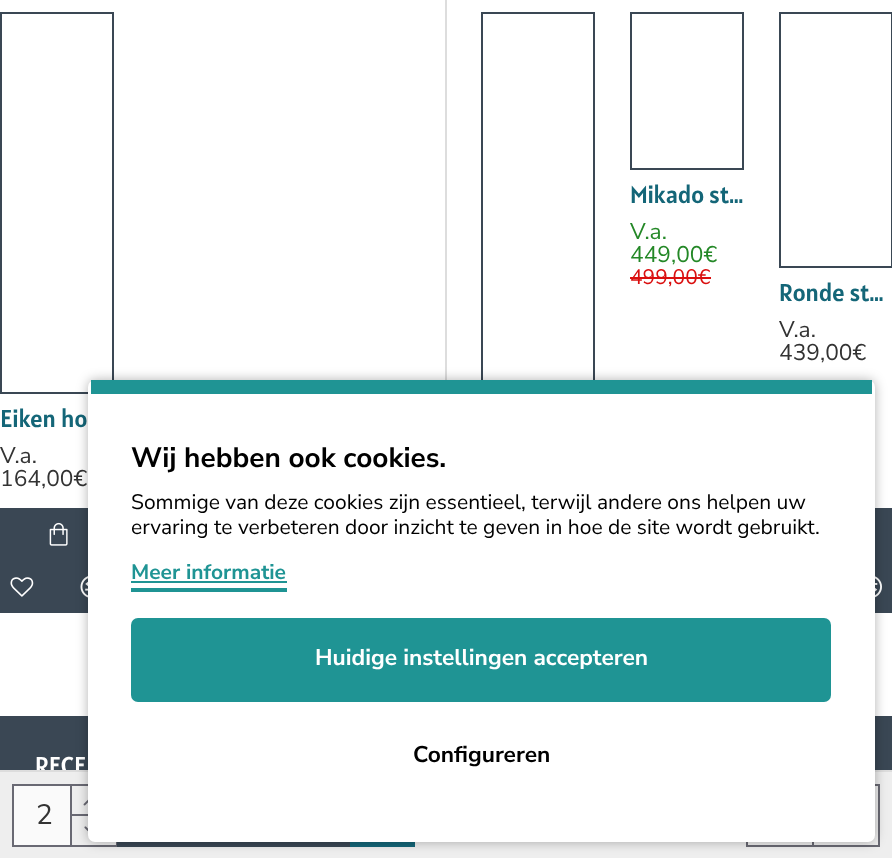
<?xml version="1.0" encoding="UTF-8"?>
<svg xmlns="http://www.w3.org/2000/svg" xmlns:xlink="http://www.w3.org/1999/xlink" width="892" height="858">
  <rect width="100%" height="100%" fill="#ffffff" />
  <rect x="482" y="13" width="112" height="380" fill="none" stroke="#3a4754" stroke-width="2" />
  <rect x="631" y="13" width="112" height="156" fill="none" stroke="#3a4754" stroke-width="2" />
  <rect x="630" y="277" width="81" height="2" fill="#da0f0f" />
  <rect x="780" y="13" width="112" height="254" fill="none" stroke="#3a4754" stroke-width="2" />
  <rect x="875" y="508" width="17" height="105" fill="#3a4754" />
  <image x="875" y="576" width="7" height="22" xlink:href="image1.png" />
  <rect x="445" width="2" height="380" fill="#dddddd" />
  <rect x="1" y="13" width="112" height="380" fill="none" stroke="#3a4754" stroke-width="2" />
  <rect y="508" width="88" height="105" fill="#3a4754" />
  <image x="49" y="522" width="19" height="24" xlink:href="image2.png" />
  <image x="10" y="577" width="24" height="20" xlink:href="image3.png" />
  <image x="80" y="576" width="8" height="22" xlink:href="image4.png" />
  <rect y="716" width="892" height="54" fill="#3a4754" />
  <text x="630" y="203" style="font-family: Alatsi; font-size: 24.5px; fill: #146678">Mikado st…</text>
  <text x="630" y="239" style="font-family: Nunito Sans; font-size: 22.75px; fill: #248827">V.a.</text>
  <text x="630" y="262" style="font-family: Nunito Sans; font-size: 22.75px; fill: #248827">449,00€</text>
  <text x="630" y="284" style="font-family: Nunito Sans; font-size: 21px; fill: #da0f0f">499,00€</text>
  <text x="779" y="301" style="font-family: Alatsi; font-size: 24.5px; fill: #146678">Ronde st…</text>
  <text x="779" y="337" style="font-family: Nunito Sans; font-size: 22.75px; fill: #333333">V.a.</text>
  <text x="779" y="360" style="font-family: Nunito Sans; font-size: 22.75px; fill: #333333">439,00€</text>
  <text x="0" y="427" style="font-family: Alatsi; font-size: 24.5px; fill: #146678">Eiken ho</text>
  <text x="0" y="463" style="font-family: Nunito Sans; font-size: 22.75px; fill: #333333">V.a.</text>
  <text x="0" y="486" style="font-family: Nunito Sans; font-size: 22.75px; fill: #333333">164,00€</text>
  <text x="35" y="774" style="font-family: Alatsi; font-size: 24.5px; fill: #ffffff">RECE</text>
  <rect y="772" width="892" height="86" fill="#eeeeee" />
  <rect y="770" width="892" height="2" fill="#dddddd" />
  <rect x="13" y="785" width="103" height="61" fill="none" stroke="#696973" stroke-width="2" />
  <rect x="14" y="786" width="56" height="59" fill="#fafafa" />
  <text x="36" y="824" style="font-family: Nunito Sans; font-size: 28px; fill: #333333">2</text>
  <rect x="70" y="786" width="2" height="59" fill="#696973" />
  <rect x="72" y="814" width="16" height="2" fill="#696973" />
  <image x="83" y="799" width="5" height="7" xlink:href="image5.png" />
  <rect x="115" y="816" width="1" height="29" fill="#eeeeee" />
  <image x="84" y="826" width="4" height="6" xlink:href="image6.png" />
  <rect x="117" y="842" width="233" height="5" fill="#3a4754" />
  <rect x="350" y="842" width="65" height="5" fill="#146678" />
  <rect x="747" y="785" width="66" height="61" fill="none" stroke="#696973" stroke-width="2" />
  <rect x="813" y="785" width="66" height="61" fill="none" stroke="#696973" stroke-width="2" />
  <rect x="88" y="380" width="787" height="462" rx="7" fill="#000000" fill-opacity="0.3" filter="blur(6px)" />
  <rect x="88" y="380" width="787" height="462" rx="7" fill="#ffffff" />
  <rect x="91" y="380" width="781" height="14" fill="#1f9494" />
  <text x="131" y="467" style="font-family: Nunito Sans; font-size: 28px; font-weight: bold; fill: #000000">Wij hebben ook cookies.</text>
  <text x="131" y="509" style="font-family: Nunito Sans; font-size: 21px; fill: #000000">Sommige van deze cookies zijn essentieel, terwijl andere ons helpen uw</text>
  <text x="131" y="534" style="font-family: Nunito Sans; font-size: 21px; fill: #000000">ervaring te verbeteren door inzicht te geven in hoe de site wordt gebruikt.</text>
  <rect x="131" y="588" width="156" height="4" fill="#1f9494" />
  <text x="131" y="579" style="font-family: Nunito Sans; font-size: 21px; font-weight: bold; fill: #1f9494">Meer informatie</text>
  <rect x="131" y="581" width="156" height="2" fill="#1f9494" />
  <rect x="131" y="618" width="700" height="84" rx="7" fill="#1f9494" />
  <text x="315" y="665" style="font-family: Nunito Sans; font-size: 22.75px; font-weight: bold; fill: #ffffff">Huidige instellingen accepteren</text>
  <text x="413" y="762" style="font-family: Nunito Sans; font-size: 22.75px; font-weight: bold; fill: #000000">Configureren</text>
</svg>
